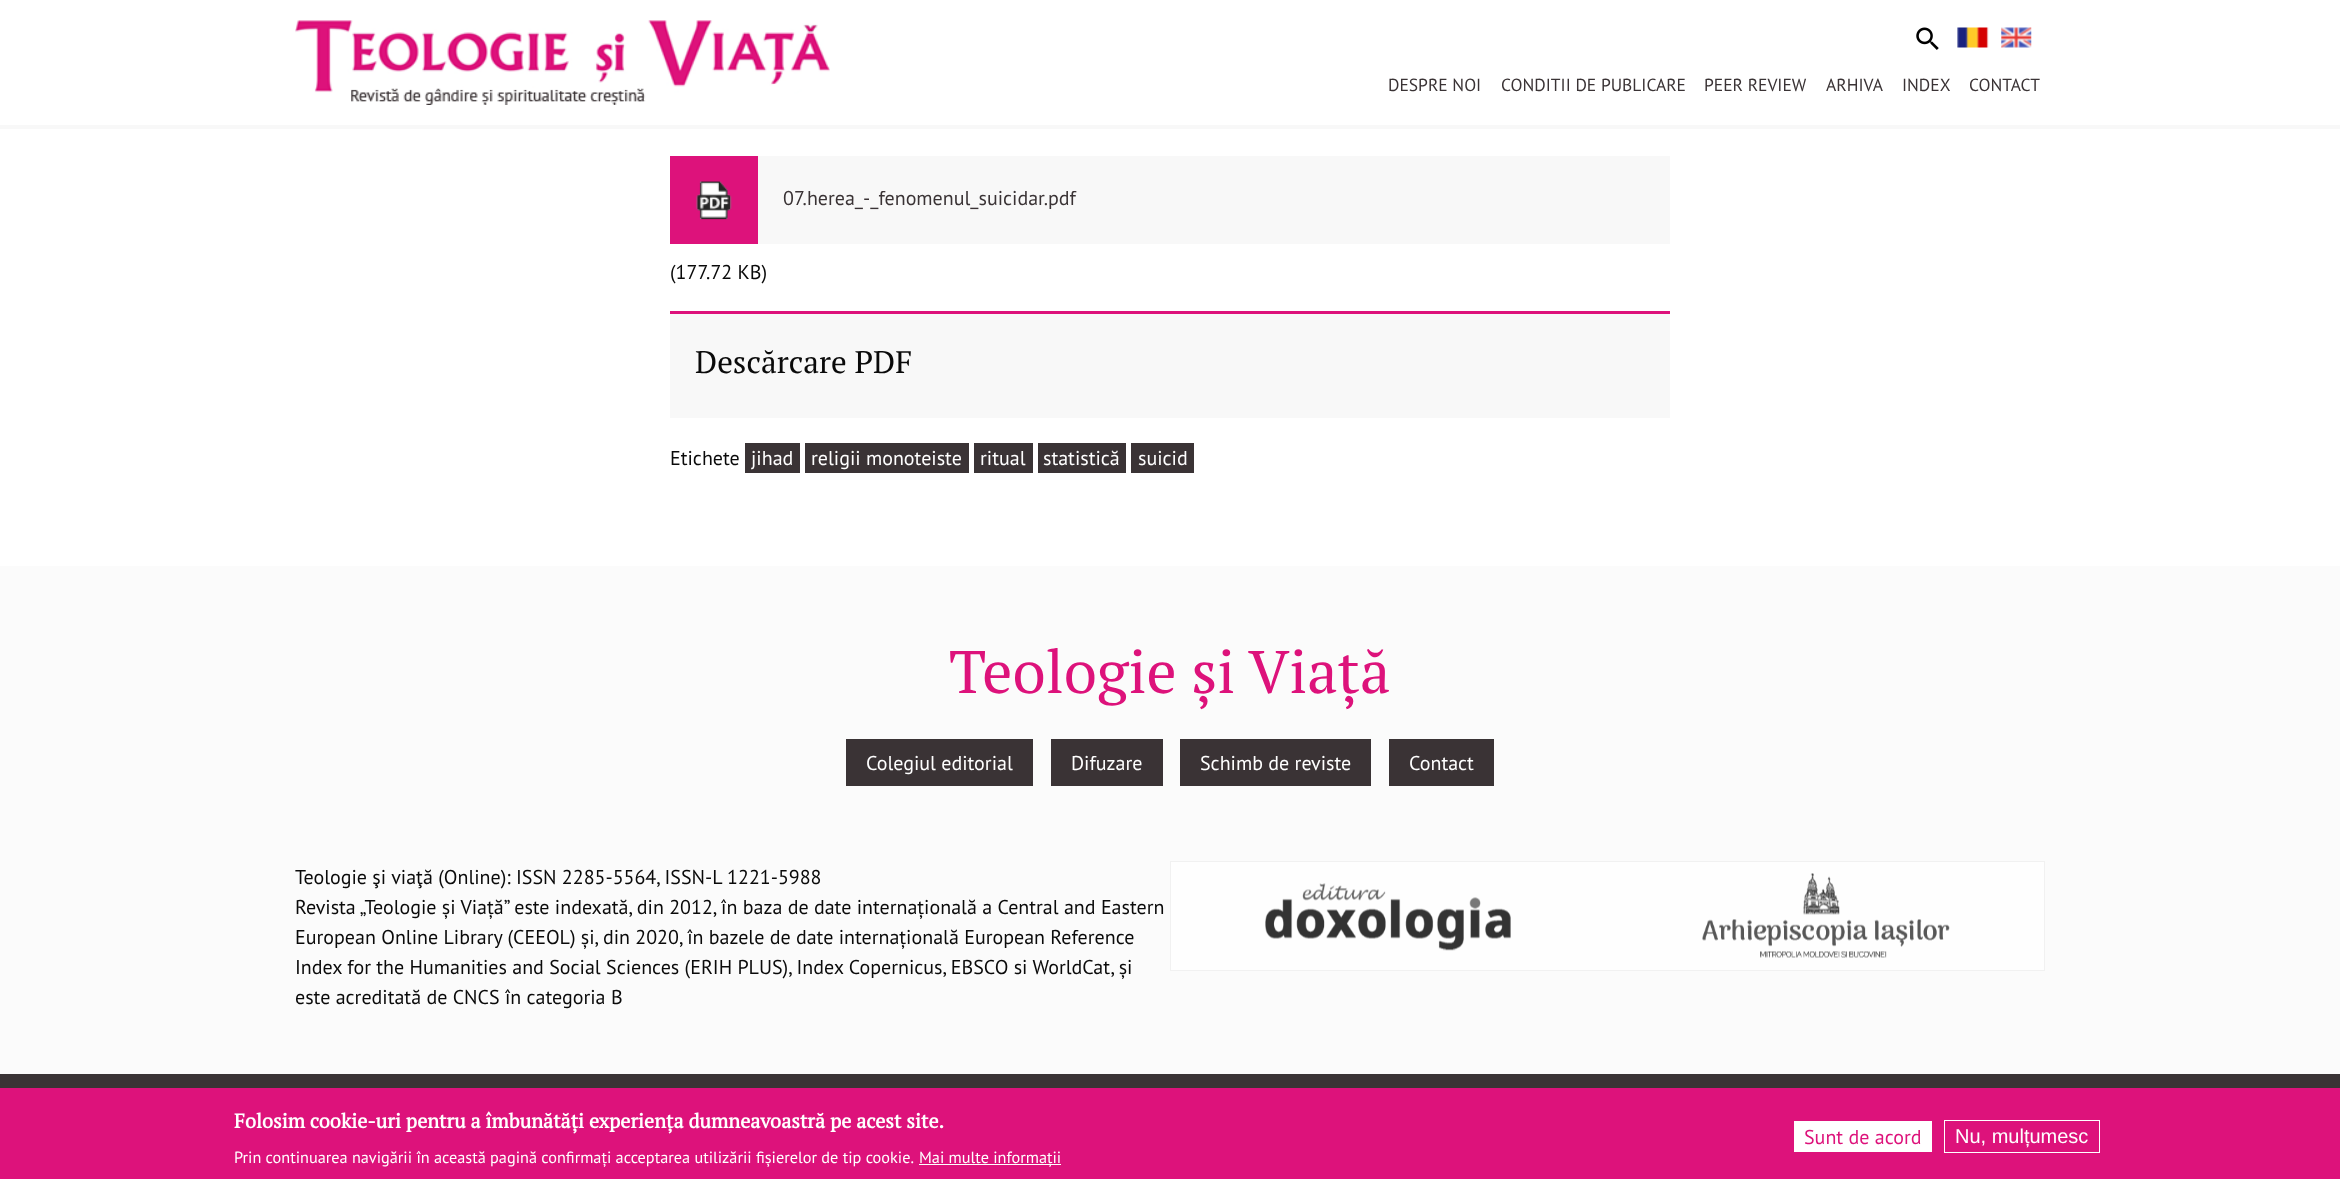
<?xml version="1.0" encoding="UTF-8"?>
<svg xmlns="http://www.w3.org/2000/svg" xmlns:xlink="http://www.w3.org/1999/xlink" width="2340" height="1179">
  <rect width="100%" height="100%" fill="#ffffff" />
  <rect y="125" width="2340" height="4" fill="#f8f8f8" />
  <image x="295" y="20" width="535" height="85" xlink:href="image1.png" />
  <image x="1916" y="27" width="23" height="23" xlink:href="image2.png" />
  <image x="1957" y="27" width="32" height="21" xlink:href="image3.png" />
  <image x="2001" y="27" width="31" height="21" xlink:href="image4.png" />
  <rect x="758" y="156" width="912" height="88" fill="#f8f8f8" />
  <rect x="670" y="156" width="88" height="88" fill="#dd127b" />
  <image x="696" y="181" width="36" height="39" xlink:href="image5.png" />
  <rect x="670" y="314" width="1000" height="104" fill="#f8f8f8" />
  <rect x="670" y="311" width="1000" height="3" fill="#dd127b" />
  <rect x="745" y="443" width="55" height="30" fill="#3a3335" />
  <rect x="805" y="443" width="164" height="30" fill="#3a3335" />
  <rect x="974" y="443" width="59" height="30" fill="#3a3335" />
  <rect x="1038" y="443" width="88" height="30" fill="#3a3335" />
  <rect x="1131" y="443" width="63" height="30" fill="#3a3335" />
  <rect y="566" width="2340" height="508" fill="#fbfbfb" />
  <rect x="846" y="739" width="187" height="47" fill="#3a3335" />
  <rect x="1051" y="739" width="112" height="47" fill="#3a3335" />
  <rect x="1180" y="739" width="191" height="47" fill="#3a3335" />
  <rect x="1389" y="739" width="105" height="47" fill="#3a3335" />
  <rect x="1171" y="862" width="873" height="108" fill="#fefefe" />
  <rect x="1170" y="861" width="875" height="1" fill="#f1f1f1" />
  <rect x="2044" y="861" width="1" height="110" fill="#f1f1f1" />
  <rect x="1170" y="970" width="875" height="1" fill="#f1f1f1" />
  <rect x="1170" y="861" width="1" height="110" fill="#f1f1f1" />
  <image x="1265" y="883" width="246" height="68" xlink:href="image6.png" />
  <image x="1702" y="873" width="248" height="85" xlink:href="image7.png" />
  <rect y="1074" width="2340" height="14" fill="#3a3335" />
  <rect y="1088" width="2340" height="91" fill="#dd127b" />
  <rect x="919" y="1164" width="142" height="1" fill="#ffffff" />
  <rect x="1794" y="1121" width="138" height="31" fill="#ffffff" />
  <rect x="1944.5" y="1120.5" width="155" height="32" fill="none" stroke="#ffffff" />
  <text x="1388" y="91" style="font-family: PT Sans; font-size: 17.5px; fill: #3a3335">DESPRE NOI</text>
  <text x="1501" y="91" style="font-family: PT Sans; font-size: 17.5px; fill: #3a3335">CONDITII DE PUBLICARE</text>
  <text x="1704" y="91" style="font-family: PT Sans; font-size: 17.5px; fill: #3a3335">PEER REVIEW</text>
  <text x="1826" y="91" style="font-family: PT Sans; font-size: 17.5px; fill: #3a3335">ARHIVA</text>
  <text x="1902" y="91" style="font-family: PT Sans; font-size: 17.5px; fill: #3a3335">INDEX</text>
  <text x="1969" y="91" style="font-family: PT Sans; font-size: 17.5px; fill: #3a3335">CONTACT</text>
  <text x="783" y="205" style="font-family: PT Sans; font-size: 20px; fill: #3a3335">07.herea_-_fenomenul_suicidar.pdf</text>
  <text x="670" y="279" style="font-family: PT Sans; font-size: 20px; fill: #0a0a0a">(177.72 KB)</text>
  <text x="695" y="373" style="font-family: PT Serif; font-size: 31.25px; fill: #0a0a0a">Descărcare PDF</text>
  <text x="670" y="465" style="font-family: PT Sans; font-size: 20px; fill: #0a0a0a">Etichete</text>
  <text x="751" y="465" style="font-family: PT Sans; font-size: 20px; fill: #ffffff">jihad</text>
  <text x="811" y="465" style="font-family: PT Sans; font-size: 20px; fill: #ffffff">religii monoteiste</text>
  <text x="980" y="465" style="font-family: PT Sans; font-size: 20px; fill: #ffffff">ritual</text>
  <text x="1043" y="465" style="font-family: PT Sans; font-size: 20px; fill: #ffffff">statistică</text>
  <text x="1138" y="465" style="font-family: PT Sans; font-size: 20px; fill: #ffffff">suicid</text>
  <text x="949" y="693" style="font-family: PT Serif; font-size: 60px; fill: #dd127b">Teologie și Viață</text>
  <text x="866" y="770" style="font-family: PT Sans; font-size: 20px; fill: #ffffff">Colegiul editorial</text>
  <text x="1071" y="770" style="font-family: PT Sans; font-size: 20px; fill: #ffffff">Difuzare</text>
  <text x="1200" y="770" style="font-family: PT Sans; font-size: 20px; fill: #ffffff">Schimb de reviste</text>
  <text x="1409" y="770" style="font-family: PT Sans; font-size: 20px; fill: #ffffff">Contact</text>
  <text x="295" y="884" style="font-family: PT Sans; font-size: 20px; fill: #0a0a0a">Teologie şi viaţă (Online): ISSN 2285-5564, ISSN-L 1221-5988</text>
  <text x="295" y="914" style="font-family: PT Sans; font-size: 20px; fill: #0a0a0a">Revista „Teologie și Viață” este indexată, din 2012, în baza de date internațională a Central and Eastern</text>
  <text x="295" y="944" style="font-family: PT Sans; font-size: 20px; fill: #0a0a0a">European Online Library (CEEOL) și, din 2020, în bazele de date internațională European Reference</text>
  <text x="295" y="974" style="font-family: PT Sans; font-size: 20px; fill: #0a0a0a">Index for the Humanities and Social Sciences (ERIH PLUS), Index Copernicus, EBSCO si WorldCat, și</text>
  <text x="295" y="1004" style="font-family: PT Sans; font-size: 20px; fill: #0a0a0a">este acreditată de CNCS în categoria B</text>
  <text x="234" y="1128" style="font-family: PT Serif; font-size: 20px; font-weight: bold; fill: #ffffff">Folosim cookie-uri pentru a îmbunătăți experiența dumneavoastră pe acest site.</text>
  <text x="234" y="1163" style="font-family: PT Sans; font-size: 16.25px; fill: #ffffff">Prin continuarea navigării în această pagină confirmați acceptarea utilizării fișierelor de tip cookie.</text>
  <text x="919" y="1163" style="font-family: PT Sans; font-size: 16.25px; fill: #ffffff">Mai multe informații</text>
  <text x="1804" y="1144" style="font-family: PT Sans; font-size: 20px; fill: #dd127b">Sunt de acord</text>
  <text x="1955" y="1143" style="font-family: Liberation Sans; font-size: 20px; fill: #ffffff">Nu, mulțumesc</text>
</svg>
